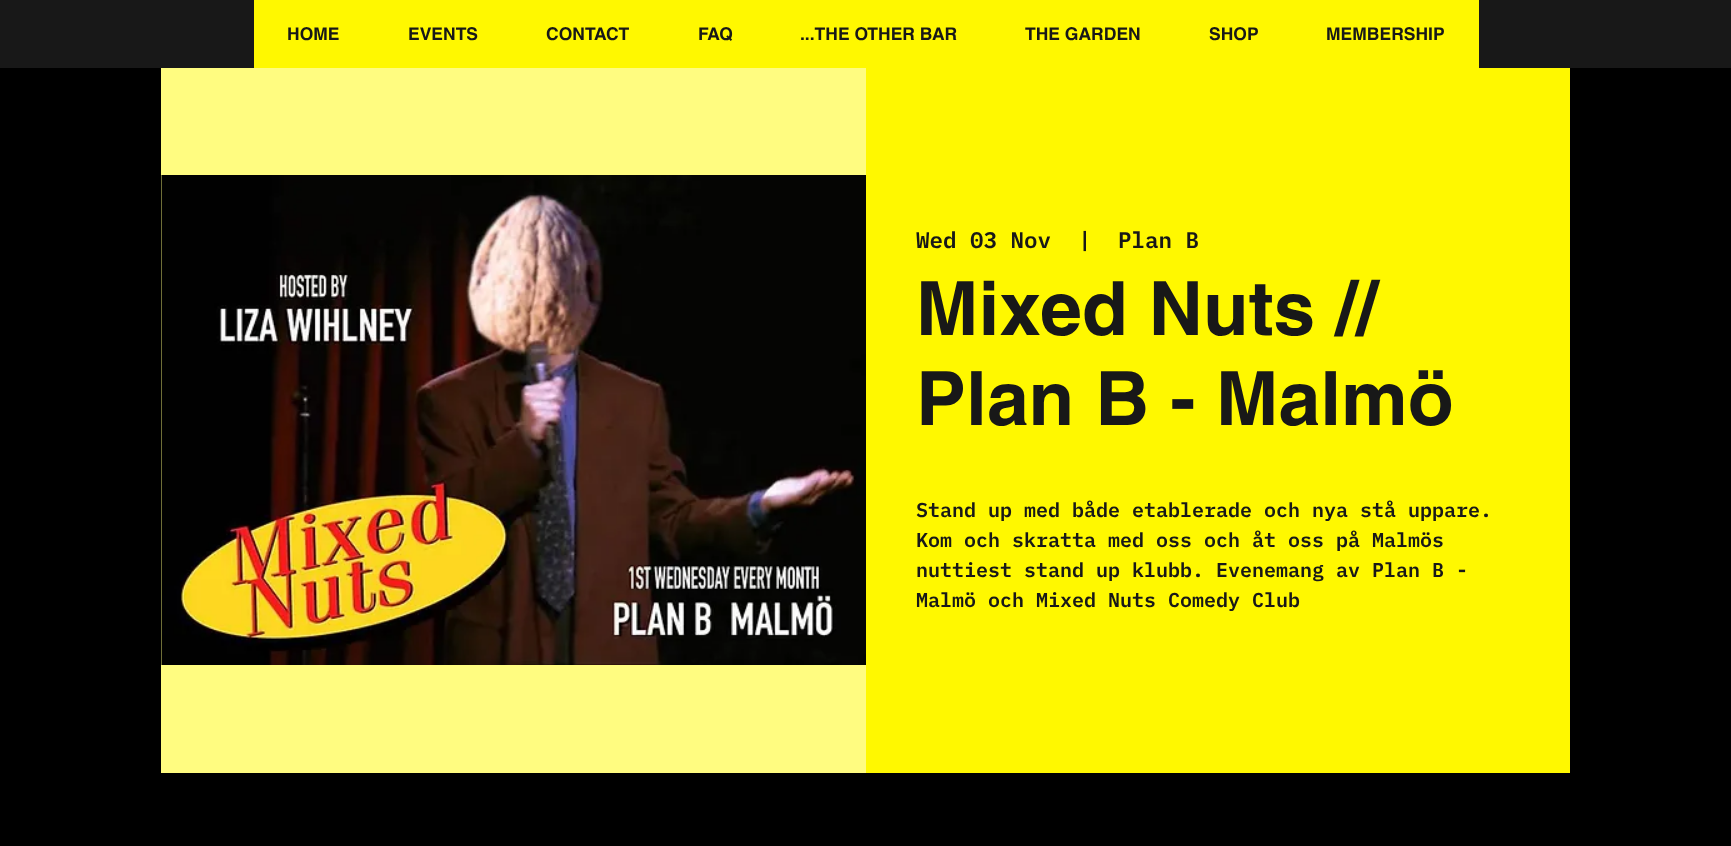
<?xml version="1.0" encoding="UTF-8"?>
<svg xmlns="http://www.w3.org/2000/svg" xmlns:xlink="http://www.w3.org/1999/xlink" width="1731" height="846">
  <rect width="100%" height="100%" fill="#181818" />
  <rect x="254" width="1225" height="68" fill="#fff800" />
  <rect y="68" width="1731" height="778" fill="#000000" />
  <rect x="161" y="68" width="705" height="705" fill="#fffc80" />
  <image x="161" y="175" width="705" height="490" xlink:href="image1.png" />
  <rect x="866" y="68" width="704" height="705" fill="#fff800" />
  <text x="287" y="40" style="font-family: helvetica; font-size: 17.5px; font-weight: bold; fill: #181818">HOME</text>
  <text x="408" y="40" style="font-family: helvetica; font-size: 17.5px; font-weight: bold; fill: #181818">EVENTS</text>
  <text x="546" y="40" style="font-family: helvetica; font-size: 17.5px; font-weight: bold; fill: #181818">CONTACT</text>
  <text x="698" y="40" style="font-family: helvetica; font-size: 17.5px; font-weight: bold; fill: #181818">FAQ</text>
  <text x="800" y="40" style="font-family: helvetica; font-size: 17.5px; font-weight: bold; fill: #181818">...THE OTHER BAR</text>
  <text x="1025" y="40" style="font-family: helvetica; font-size: 17.5px; font-weight: bold; fill: #181818">THE GARDEN</text>
  <text x="1209" y="40" style="font-family: helvetica; font-size: 17.5px; font-weight: bold; fill: #181818">SHOP</text>
  <text x="1326" y="40" style="font-family: helvetica; font-size: 17.5px; font-weight: bold; fill: #181818">MEMBERSHIP</text>
  <text x="916" y="248" style="font-family: IBM Plex Mono; font-size: 22.5px; font-weight: 600; fill: #181818">Wed 03 Nov</text>
  <text x="1078" y="248" style="font-family: IBM Plex Mono; font-size: 22.5px; font-weight: 600; fill: #181818">|</text>
  <text x="1118" y="248" style="font-family: IBM Plex Mono; font-size: 22.5px; font-weight: 600; fill: #181818">Plan B</text>
  <text x="916" y="335" style="font-family: helvetica; font-size: 75px; font-weight: bold; fill: #181818">Mixed Nuts //</text>
  <text x="916" y="425" style="font-family: helvetica; font-size: 75px; font-weight: bold; fill: #181818">Plan B - Malmö</text>
  <text x="916" y="517" style="font-family: IBM Plex Mono; font-size: 20px; font-weight: 600; fill: #181818">Stand up med både etablerade och nya stå uppare.</text>
  <text x="916" y="547" style="font-family: IBM Plex Mono; font-size: 20px; font-weight: 600; fill: #181818">Kom och skratta med oss och åt oss på Malmös</text>
  <text x="916" y="577" style="font-family: IBM Plex Mono; font-size: 20px; font-weight: 600; fill: #181818">nuttiest stand up klubb. Evenemang av Plan B -</text>
  <text x="916" y="607" style="font-family: IBM Plex Mono; font-size: 20px; font-weight: 600; fill: #181818">Malmö och Mixed Nuts Comedy Club</text>
</svg>
